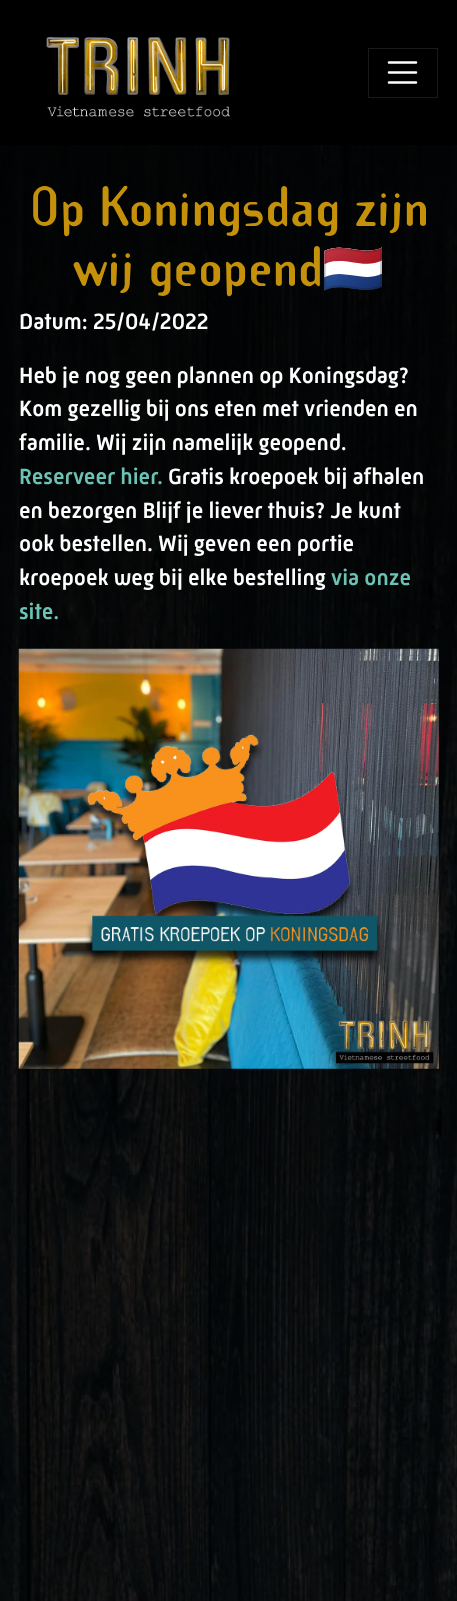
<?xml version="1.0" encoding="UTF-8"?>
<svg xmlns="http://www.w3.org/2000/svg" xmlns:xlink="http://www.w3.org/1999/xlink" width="457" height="1601">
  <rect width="100%" height="100%" fill="#ffffff" />
  <rect width="457" height="145" fill="#000000" />
  <image x="46" y="36" width="185" height="81" xlink:href="image1.png" />
  <rect x="368.5" y="48.5" width="69" height="49" fill="none" stroke="#1a1a1a" />
  <path d="M 389 62.5 h 27 m -27 10 h 27 m -27 10 h 27" fill="none" stroke="#ffffff" stroke-width="2.5" stroke-linecap="round" />
  <image x="0" y="145" width="457" height="1456" xlink:href="image2.png" />
  <image x="18" y="648" width="421" height="421" xlink:href="image3.png" />
  <text x="30" y="226" style="font-family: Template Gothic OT; font-size: 50px; font-weight: bold; fill: #c5910b">Op Koningsdag zijn</text>
  <text x="73" y="286" style="font-family: Template Gothic OT; font-size: 50px; font-weight: bold; fill: #c5910b">wij geopend</text>
  <text x="322" y="286" style="font-family: Noto Color Emoji; font-size: 50px; font-weight: bold; fill: #c5910b">🇳🇱</text>
  <text x="19" y="329" style="font-family: 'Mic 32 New'; font-size: 22.5px; font-weight: 500; fill: #ffffff">Datum: 25/04/2022</text>
  <text x="19" y="383" style="font-family: 'Mic 32 New'; font-size: 22.5px; font-weight: 500; fill: #ffffff">Heb je nog geen plannen op Koningsdag?</text>
  <text x="19" y="416" style="font-family: 'Mic 32 New'; font-size: 22.5px; font-weight: 500; fill: #ffffff">Kom gezellig bij ons eten met vrienden en</text>
  <text x="19" y="450" style="font-family: 'Mic 32 New'; font-size: 22.5px; font-weight: 500; fill: #ffffff">familie. Wij zijn namelijk geopend.</text>
  <text x="19" y="484" style="font-family: 'Mic 32 New'; font-size: 22.5px; font-weight: 500; fill: #6cc3b5">Reserveer hier.</text>
  <text x="168" y="484" style="font-family: 'Mic 32 New'; font-size: 22.5px; font-weight: 500; fill: #ffffff">Gratis kroepoek bij afhalen</text>
  <text x="19" y="518" style="font-family: 'Mic 32 New'; font-size: 22.5px; font-weight: 500; fill: #ffffff">en bezorgen Blijf je liever thuis? Je kunt</text>
  <text x="19" y="551" style="font-family: 'Mic 32 New'; font-size: 22.5px; font-weight: 500; fill: #ffffff">ook bestellen. Wij geven een portie</text>
  <text x="19" y="585" style="font-family: 'Mic 32 New'; font-size: 22.5px; font-weight: 500; fill: #ffffff">kroepoek weg bij elke bestelling</text>
  <text x="331" y="585" style="font-family: 'Mic 32 New'; font-size: 22.5px; font-weight: 500; fill: #6cc3b5">via onze</text>
  <text x="19" y="619" style="font-family: 'Mic 32 New'; font-size: 22.5px; font-weight: 500; fill: #6cc3b5">site.</text>
</svg>
